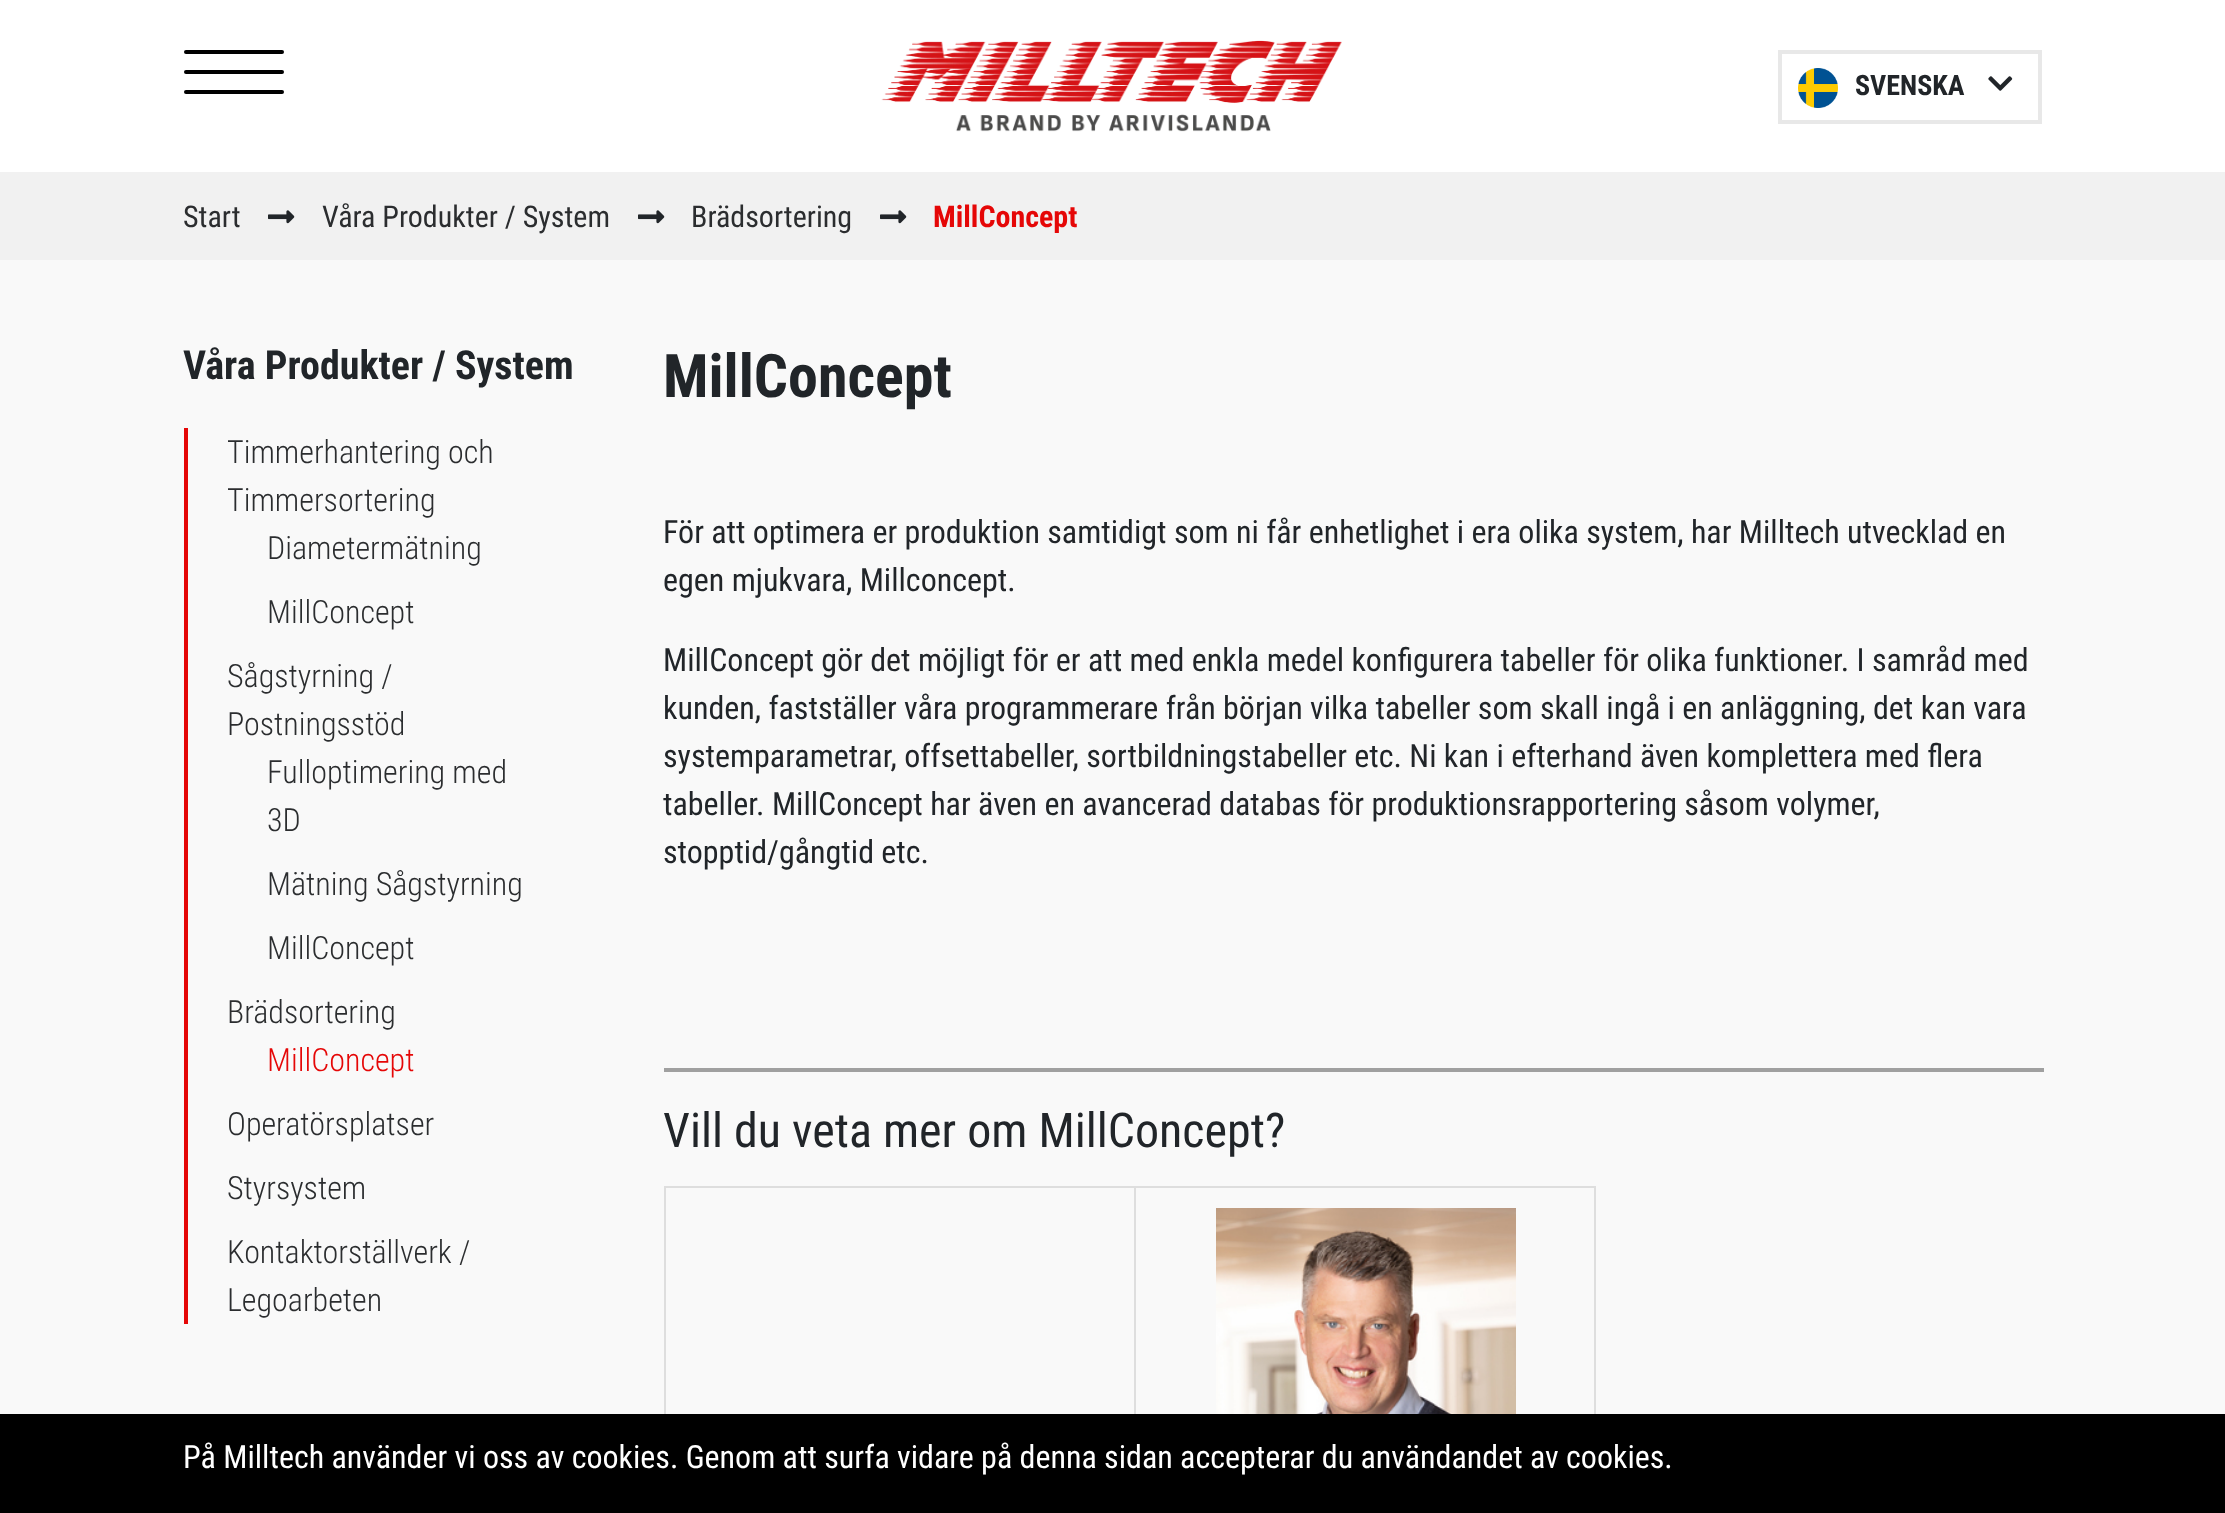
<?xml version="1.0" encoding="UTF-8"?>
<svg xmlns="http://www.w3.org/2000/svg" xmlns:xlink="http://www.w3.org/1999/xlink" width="2225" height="1513">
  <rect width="100%" height="100%" fill="#f9f9f9" />
  <rect width="2225" height="172" fill="#ffffff" />
  <rect x="184" y="70" width="100" height="4" rx="2" fill="#000000" />
  <rect x="184" y="50" width="100" height="4" rx="2" fill="#000000" />
  <rect x="184" y="90" width="100" height="4" rx="2" fill="#000000" />
  <image x="881" y="40" width="461" height="92" xlink:href="image1.png" />
  <image x="1798" y="68" width="40" height="40" xlink:href="image2.png" />
  <rect x="1780" y="52" width="260" height="70" fill="none" stroke="#e8e8e8" stroke-width="4" />
  <image x="1988" y="76" width="25" height="15" xlink:href="image3.png" />
  <rect y="172" width="2225" height="88" fill="#f1f1f1" />
  <image x="268" y="210" width="27" height="14" xlink:href="image4.png" />
  <image x="638" y="210" width="27" height="14" xlink:href="image4.png" />
  <image x="880" y="210" width="27" height="14" xlink:href="image4.png" />
  <rect x="184" y="428" width="4" height="896" fill="#e50707" />
  <rect x="664" y="1068" width="1380" height="4" fill="#a0a0a0" />
  <rect x="664" y="1186" width="932" height="2" fill="#dedede" />
  <rect x="1594" y="1186" width="2" height="228" fill="#dedede" />
  <rect x="664" y="1186" width="2" height="228" fill="#dedede" />
  <rect x="1134" y="1186" width="2" height="228" fill="#dedede" />
  <image x="1216" y="1208" width="300" height="206" xlink:href="image5.png" />
  <rect y="1414" width="2225" height="99" fill="#000000" />
  <text x="1855" y="95" style="font-family: Roboto Condensed; font-size: 28px; font-weight: bold; fill: #212529">SVENSKA</text>
  <text x="183" y="227" style="font-family: Roboto Condensed; font-size: 30px; fill: #2b2d2f">Start</text>
  <text x="322" y="227" style="font-family: Roboto Condensed; font-size: 30px; fill: #2b2d2f">Våra Produkter / System</text>
  <text x="691" y="227" style="font-family: Roboto Condensed; font-size: 30px; fill: #2b2d2f">Brädsortering</text>
  <text x="933" y="227" style="font-family: Roboto Condensed; font-size: 30px; font-weight: bold; fill: #e50707">MillConcept</text>
  <text x="183" y="379" style="font-family: Roboto Condensed; font-size: 40px; font-weight: bold; fill: #212529">Våra Produkter / System</text>
  <text x="227" y="463" style="font-family: Roboto Condensed; font-size: 32px; font-weight: 300; fill: #2b2d2f">Timmerhantering och</text>
  <text x="227" y="511" style="font-family: Roboto Condensed; font-size: 32px; font-weight: 300; fill: #2b2d2f">Timmersortering</text>
  <text x="267" y="559" style="font-family: Roboto Condensed; font-size: 32px; font-weight: 300; fill: #2b2d2f">Diametermätning</text>
  <text x="267" y="623" style="font-family: Roboto Condensed; font-size: 32px; font-weight: 300; fill: #2b2d2f">MillConcept</text>
  <text x="227" y="687" style="font-family: Roboto Condensed; font-size: 32px; font-weight: 300; fill: #2b2d2f">Sågstyrning /</text>
  <text x="227" y="735" style="font-family: Roboto Condensed; font-size: 32px; font-weight: 300; fill: #2b2d2f">Postningsstöd</text>
  <text x="267" y="783" style="font-family: Roboto Condensed; font-size: 32px; font-weight: 300; fill: #2b2d2f">Fulloptimering med</text>
  <text x="267" y="831" style="font-family: Roboto Condensed; font-size: 32px; font-weight: 300; fill: #2b2d2f">3D</text>
  <text x="267" y="895" style="font-family: Roboto Condensed; font-size: 32px; font-weight: 300; fill: #2b2d2f">Mätning Sågstyrning</text>
  <text x="267" y="959" style="font-family: Roboto Condensed; font-size: 32px; font-weight: 300; fill: #2b2d2f">MillConcept</text>
  <text x="227" y="1023" style="font-family: Roboto Condensed; font-size: 32px; font-weight: 300; fill: #2b2d2f">Brädsortering</text>
  <text x="267" y="1071" style="font-family: Roboto Condensed; font-size: 32px; font-weight: 300; fill: #e50707">MillConcept</text>
  <text x="227" y="1135" style="font-family: Roboto Condensed; font-size: 32px; font-weight: 300; fill: #2b2d2f">Operatörsplatser</text>
  <text x="227" y="1199" style="font-family: Roboto Condensed; font-size: 32px; font-weight: 300; fill: #2b2d2f">Styrsystem</text>
  <text x="227" y="1263" style="font-family: Roboto Condensed; font-size: 32px; font-weight: 300; fill: #2b2d2f">Kontaktorställverk /</text>
  <text x="227" y="1311" style="font-family: Roboto Condensed; font-size: 32px; font-weight: 300; fill: #2b2d2f">Legoarbeten</text>
  <text x="663" y="397" style="font-family: Roboto Condensed; font-size: 60px; font-weight: bold; fill: #212529">MillConcept</text>
  <text x="663" y="543" style="font-family: Roboto Condensed; font-size: 32px; fill: #212529">För att optimera er produktion samtidigt som ni får enhetlighet i era olika system, har Milltech utvecklad en</text>
  <text x="663" y="591" style="font-family: Roboto Condensed; font-size: 32px; fill: #212529">egen mjukvara, Millconcept.</text>
  <text x="663" y="671" style="font-family: Roboto Condensed; font-size: 32px; fill: #212529">MillConcept gör det möjligt för er att med enkla medel konfigurera tabeller för olika funktioner. I samråd med</text>
  <text x="663" y="719" style="font-family: Roboto Condensed; font-size: 32px; fill: #212529">kunden, fastställer våra programmerare från början vilka tabeller som skall ingå i en anläggning, det kan vara</text>
  <text x="663" y="767" style="font-family: Roboto Condensed; font-size: 32px; fill: #212529">systemparametrar, offsettabeller, sortbildningstabeller etc. Ni kan i efterhand även komplettera med flera</text>
  <text x="663" y="815" style="font-family: Roboto Condensed; font-size: 32px; fill: #212529">tabeller. MillConcept har även en avancerad databas för produktionsrapportering såsom volymer,</text>
  <text x="663" y="863" style="font-family: Roboto Condensed; font-size: 32px; fill: #212529">stopptid/gångtid etc.</text>
  <text x="663" y="1147" style="font-family: Roboto Condensed; font-size: 48px; fill: #212529">Vill du veta mer om MillConcept?</text>
  <text x="183" y="1468" style="font-family: Roboto Condensed; font-size: 32px; fill: #ffffff">På Milltech använder vi oss av cookies. Genom att surfa vidare på denna sidan accepterar du användandet av cookies.</text>
</svg>
